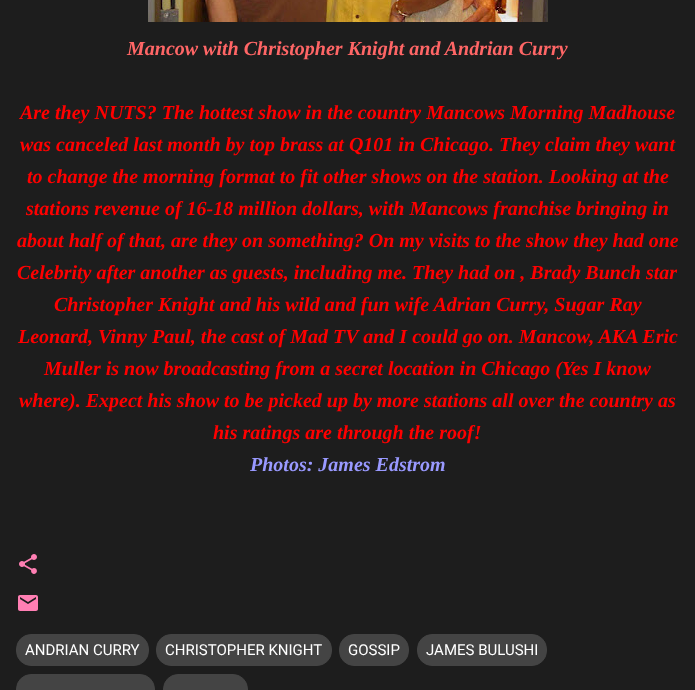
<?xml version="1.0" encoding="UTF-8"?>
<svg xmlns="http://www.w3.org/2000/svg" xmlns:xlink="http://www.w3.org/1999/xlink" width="695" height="690">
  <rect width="100%" height="100%" fill="#1d1d1d" />
  <image x="148" y="0" width="400" height="22" xlink:href="image1.png" />
  <image x="19" y="554" width="18" height="20" xlink:href="image2.png" />
  <image x="18" y="595" width="20" height="16" xlink:href="image3.png" />
  <rect x="16.5" y="634.5" width="132" height="31" rx="14.5" fill="#444444" stroke="#444444" />
  <rect x="156.5" y="634.5" width="175" height="31" rx="14.5" fill="#444444" stroke="#444444" />
  <rect x="339.5" y="634.5" width="69" height="31" rx="14.5" fill="#444444" stroke="#444444" />
  <rect x="417.5" y="634.5" width="129" height="31" rx="14.5" fill="#444444" stroke="#444444" />
  <rect x="16.5" y="674.5" width="138" height="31" rx="14.5" fill="#444444" stroke="#444444" />
  <rect x="163.5" y="674.5" width="84" height="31" rx="14.5" fill="#444444" stroke="#444444" />
  <text x="127" y="55" style="font-family: Liberation Serif; font-size: 20px; font-weight: bold; font-style: italic; fill: #ff6666">Mancow with Christopher Knight and Andrian Curry</text>
  <text x="20" y="119" style="font-family: Liberation Serif; font-size: 20px; font-weight: bold; font-style: italic; fill: #ff0000">Are they NUTS? The hottest show in the country Mancows Morning Madhouse</text>
  <text x="20" y="151" style="font-family: Liberation Serif; font-size: 20px; font-weight: bold; font-style: italic; fill: #ff0000">was canceled last month by top brass at Q101 in Chicago. They claim they want</text>
  <text x="27" y="183" style="font-family: Liberation Serif; font-size: 20px; font-weight: bold; font-style: italic; fill: #ff0000">to change the morning format to fit other shows on the station. Looking at the</text>
  <text x="26" y="215" style="font-family: Liberation Serif; font-size: 20px; font-weight: bold; font-style: italic; fill: #ff0000">stations revenue of 16-18 million dollars, with Mancows franchise bringing in</text>
  <text x="17" y="247" style="font-family: Liberation Serif; font-size: 20px; font-weight: bold; font-style: italic; fill: #ff0000">about half of that, are they on something? On my visits to the show they had one</text>
  <text x="17" y="279" style="font-family: Liberation Serif; font-size: 20px; font-weight: bold; font-style: italic; fill: #ff0000">Celebrity after another as guests, including me. They had on , Brady Bunch star</text>
  <text x="54" y="311" style="font-family: Liberation Serif; font-size: 20px; font-weight: bold; font-style: italic; fill: #ff0000">Christopher Knight and his wild and fun wife Adrian Curry, Sugar Ray</text>
  <text x="18" y="343" style="font-family: Liberation Serif; font-size: 20px; font-weight: bold; font-style: italic; fill: #ff0000">Leonard, Vinny Paul, the cast of Mad TV and I could go on. Mancow, AKA Eric</text>
  <text x="44" y="375" style="font-family: Liberation Serif; font-size: 20px; font-weight: bold; font-style: italic; fill: #ff0000">Muller is now broadcasting from a secret location in Chicago (Yes I know</text>
  <text x="19" y="407" style="font-family: Liberation Serif; font-size: 20px; font-weight: bold; font-style: italic; fill: #ff0000">where). Expect his show to be picked up by more stations all over the country as</text>
  <text x="213" y="439" style="font-family: Liberation Serif; font-size: 20px; font-weight: bold; font-style: italic; fill: #ff0000">his ratings are through the roof!</text>
  <text x="250" y="471" style="font-family: Liberation Serif; font-size: 20px; font-weight: bold; font-style: italic; fill: #9999ff">Photos: James Edstrom</text>
  <text x="25" y="655" style="font-family: Roboto; font-size: 15px; fill: #ffffff">ANDRIAN CURRY</text>
  <text x="165" y="655" style="font-family: Roboto; font-size: 15px; fill: #ffffff">CHRISTOPHER KNIGHT</text>
  <text x="348" y="655" style="font-family: Roboto; font-size: 15px; fill: #ffffff">GOSSIP</text>
  <text x="426" y="655" style="font-family: Roboto; font-size: 15px; fill: #ffffff">JAMES BULUSHI</text>
</svg>
